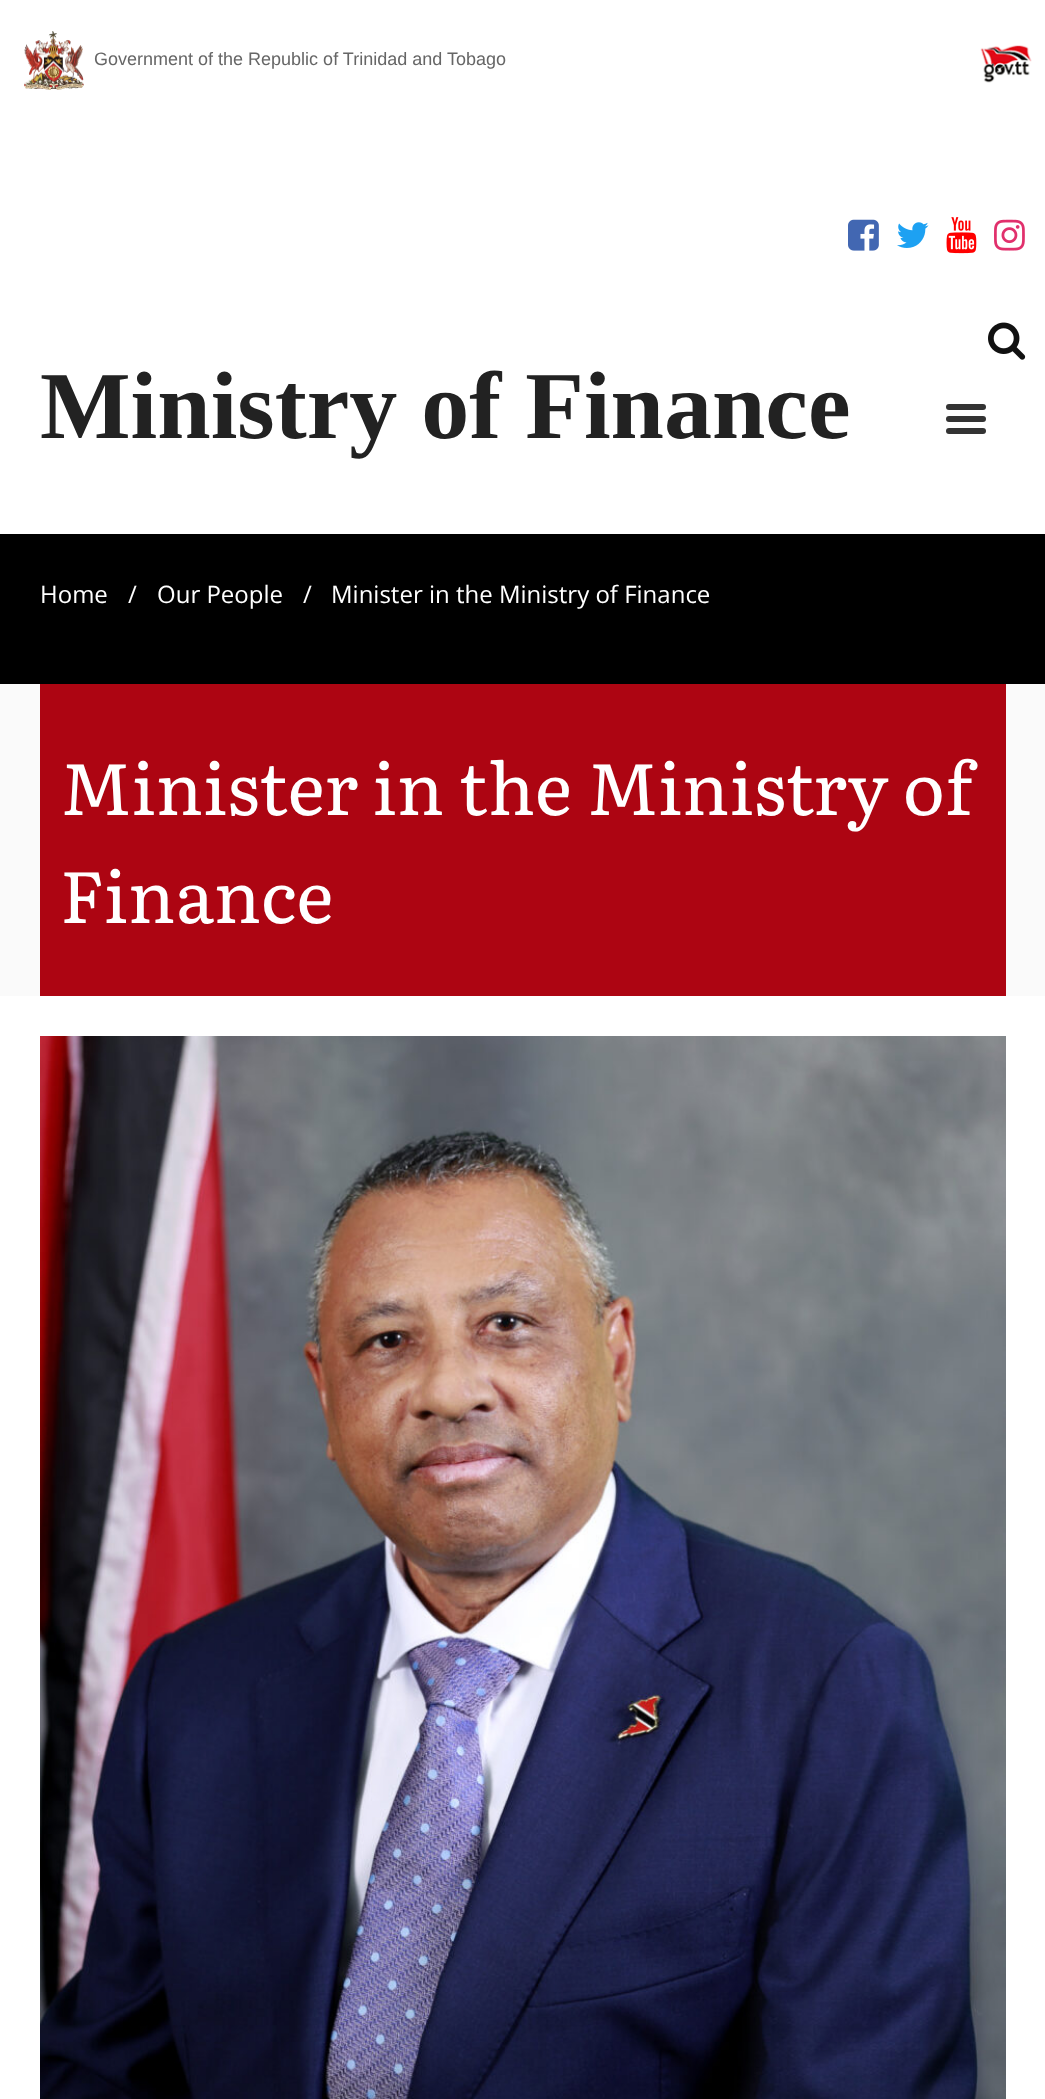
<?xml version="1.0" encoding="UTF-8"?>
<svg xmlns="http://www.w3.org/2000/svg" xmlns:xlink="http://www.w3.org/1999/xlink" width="1045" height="2099">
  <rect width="100%" height="100%" fill="#fafafa" />
  <rect width="1045" height="534" fill="#ffffff" />
  <image x="24" y="31" width="60" height="59" xlink:href="image1.png" />
  <image x="980" y="45" width="52" height="38" xlink:href="image2.png" />
  <image x="848" y="219" width="31" height="32" xlink:href="image3.png" />
  <image x="897" y="222" width="32" height="26" xlink:href="image4.png" />
  <image x="946" y="217" width="31" height="37" xlink:href="image5.png" />
  <image x="994" y="219" width="31" height="32" xlink:href="image6.png" />
  <image x="988" y="322" width="38" height="38" xlink:href="image7.png" />
  <rect x="946" y="404" width="40" height="6" rx="3" fill="#333333" />
  <rect x="946" y="416" width="40" height="6" rx="3" fill="#333333" />
  <rect x="946" y="428" width="40" height="6" rx="3" fill="#333333" />
  <rect y="534" width="1045" height="150" fill="#000000" />
  <rect x="40" y="684" width="966" height="312" fill="#ad0512" />
  <rect y="996" width="1045" height="1103" fill="#ffffff" />
  <image x="40" y="1036" width="966" height="1063" xlink:href="image8.png" />
  <text x="94" y="65" style="font-family: Liberation Sans; font-size: 18px; fill: #666666">Government of the Republic of Trinidad and Tobago</text>
  <text x="40" y="438" style="font-family: Liberation Serif; font-size: 96px; font-weight: bold; fill: #222222">Ministry of Finance</text>
  <text x="40" y="603" style="font-family: Open Sans; font-size: 24px; fill: #ffffff">Home</text>
  <text x="128" y="603" style="font-family: Open Sans; font-size: 24px; fill: #ffffff">/</text>
  <text x="157" y="603" style="font-family: Open Sans; font-size: 24px; fill: #ffffff">Our People</text>
  <text x="303" y="603" style="font-family: Open Sans; font-size: 24px; fill: #ffffff">/</text>
  <text x="331" y="603" style="font-family: Open Sans; font-size: 24px; fill: #ffffff">Minister in the Ministry of Finance</text>
  <text x="60" y="815" style="font-family: Literata; font-size: 72px; fill: #ffffff">Minister in the Ministry of</text>
  <text x="60" y="923" style="font-family: Literata; font-size: 72px; fill: #ffffff">Finance</text>
</svg>
